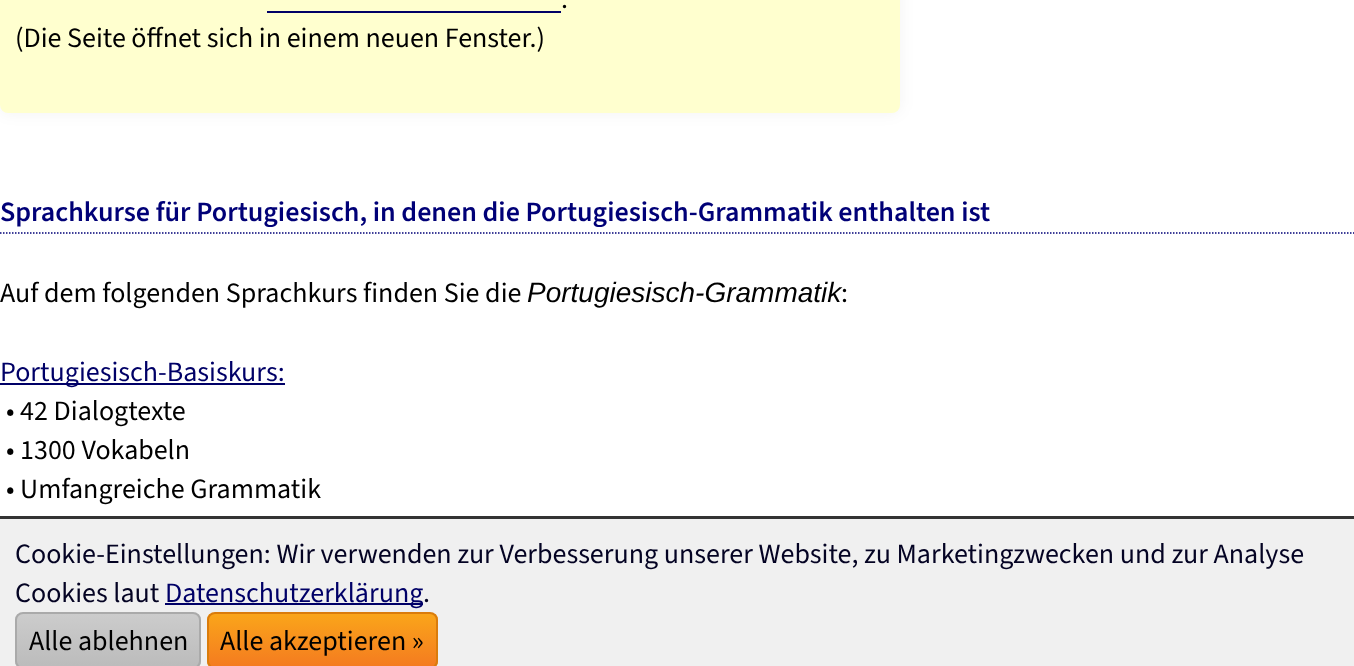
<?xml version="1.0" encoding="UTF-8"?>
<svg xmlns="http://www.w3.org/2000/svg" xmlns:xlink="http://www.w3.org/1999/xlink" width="1354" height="666">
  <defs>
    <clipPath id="clip1"><rect x="15" y="612" width="186" height="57" rx="8" /></clipPath>
    <linearGradient id="g1" gradientUnits="userSpaceOnUse" x1="17" y1="614" x2="17" y2="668"><stop offset="0" stop-color="#cccccc" /><stop offset="1" stop-color="#bbbbbb" /></linearGradient>
    <clipPath id="clip2"><rect x="207" y="612" width="231" height="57" rx="8" /></clipPath>
    <linearGradient id="g2" gradientUnits="userSpaceOnUse" x1="209" y1="614" x2="209" y2="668"><stop offset="0" stop-color="#faa51a" /><stop offset="1" stop-color="#f47a20" /></linearGradient>
  </defs>
  <rect width="100%" height="100%" fill="#ffffff" />
  <rect y="-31" width="900" height="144" rx="8" fill="#000000" fill-opacity="0.05" filter="blur(7.5px)" />
  <rect y="-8" width="900" height="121" rx="8" fill="#ffffcf" />
  <rect x="267" y="11" width="294" height="2" fill="#000067" />
  <path d="M 0 233 h 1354.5" fill="none" stroke="#000077" stroke-width="1.5" stroke-dasharray="1.5 1.5" />
  <rect y="383" width="285" height="2" fill="#000067" />
  <rect y="519" width="1354" height="147" fill="#f0f0f0" />
  <rect y="516" width="1354" height="3" fill="#333333" />
  <rect x="165" y="603" width="258" height="2" fill="#000067" />
  <g clip-path="url(#clip1)">
    <rect x="15" y="614" width="186" height="52" fill="url(#g1)" />
  </g>
  <rect x="16" y="613" width="184" height="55" rx="7" fill="none" stroke="#aaaaaa" stroke-width="2" />
  <g clip-path="url(#clip2)">
    <rect x="207" y="614" width="231" height="52" fill="url(#g2)" />
  </g>
  <rect x="208" y="613" width="229" height="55" rx="7" fill="none" stroke="#da7c0c" stroke-width="2" />
  <text x="561" y="8" style="font-family: 'Source Sans 3'; font-size: 28px; fill: #000000">.</text>
  <text x="15" y="47" style="font-family: 'Source Sans 3'; font-size: 28px; fill: #000000">(Die Seite öffnet sich in einem neuen Fenster.)</text>
  <text x="0" y="221" style="font-family: 'Source Sans 3'; font-size: 28px; font-weight: 600; fill: #000077">Sprachkurse für Portugiesisch, in denen die Portugiesisch-Grammatik enthalten ist</text>
  <text x="0" y="302" style="font-family: 'Source Sans 3'; font-size: 28px; fill: #000000">Auf dem folgenden Sprachkurs finden Sie die</text>
  <text x="527" y="302" style="font-family: Liberation Sans; font-size: 28px; font-style: italic; fill: #000000">Portugiesisch-Grammatik</text>
  <text x="841" y="302" style="font-family: 'Source Sans 3'; font-size: 28px; fill: #000000">:</text>
  <text x="0" y="381" style="font-family: 'Source Sans 3'; font-size: 28px; fill: #000067">Portugiesisch-Basiskurs:</text>
  <text x="6" y="420" style="font-family: 'Source Sans 3'; font-size: 28px; fill: #000000">• 42 Dialogtexte</text>
  <text x="6" y="459" style="font-family: 'Source Sans 3'; font-size: 28px; fill: #000000">• 1300 Vokabeln</text>
  <text x="6" y="498" style="font-family: 'Source Sans 3'; font-size: 28px; fill: #000000">• Umfangreiche Grammatik</text>
  <text x="15" y="563" style="font-family: 'Source Sans 3'; font-size: 28px; fill: #040323">Cookie-Einstellungen: Wir verwenden zur Verbesserung unserer Website, zu Marketingzwecken und zur Analyse</text>
  <text x="15" y="602" style="font-family: 'Source Sans 3'; font-size: 28px; fill: #040323">Cookies laut</text>
  <text x="165" y="602" style="font-family: 'Source Sans 3'; font-size: 28px; fill: #000067">Datenschutzerklärung</text>
  <text x="423" y="602" style="font-family: 'Source Sans 3'; font-size: 28px; fill: #040323">.</text>
  <text x="29" y="650" style="font-family: 'Source Sans 3'; font-size: 28px; fill: #000000">Alle ablehnen</text>
  <text x="220" y="650" style="font-family: 'Source Sans 3'; font-size: 28px; fill: #000000">Alle akzeptieren »</text>
</svg>
